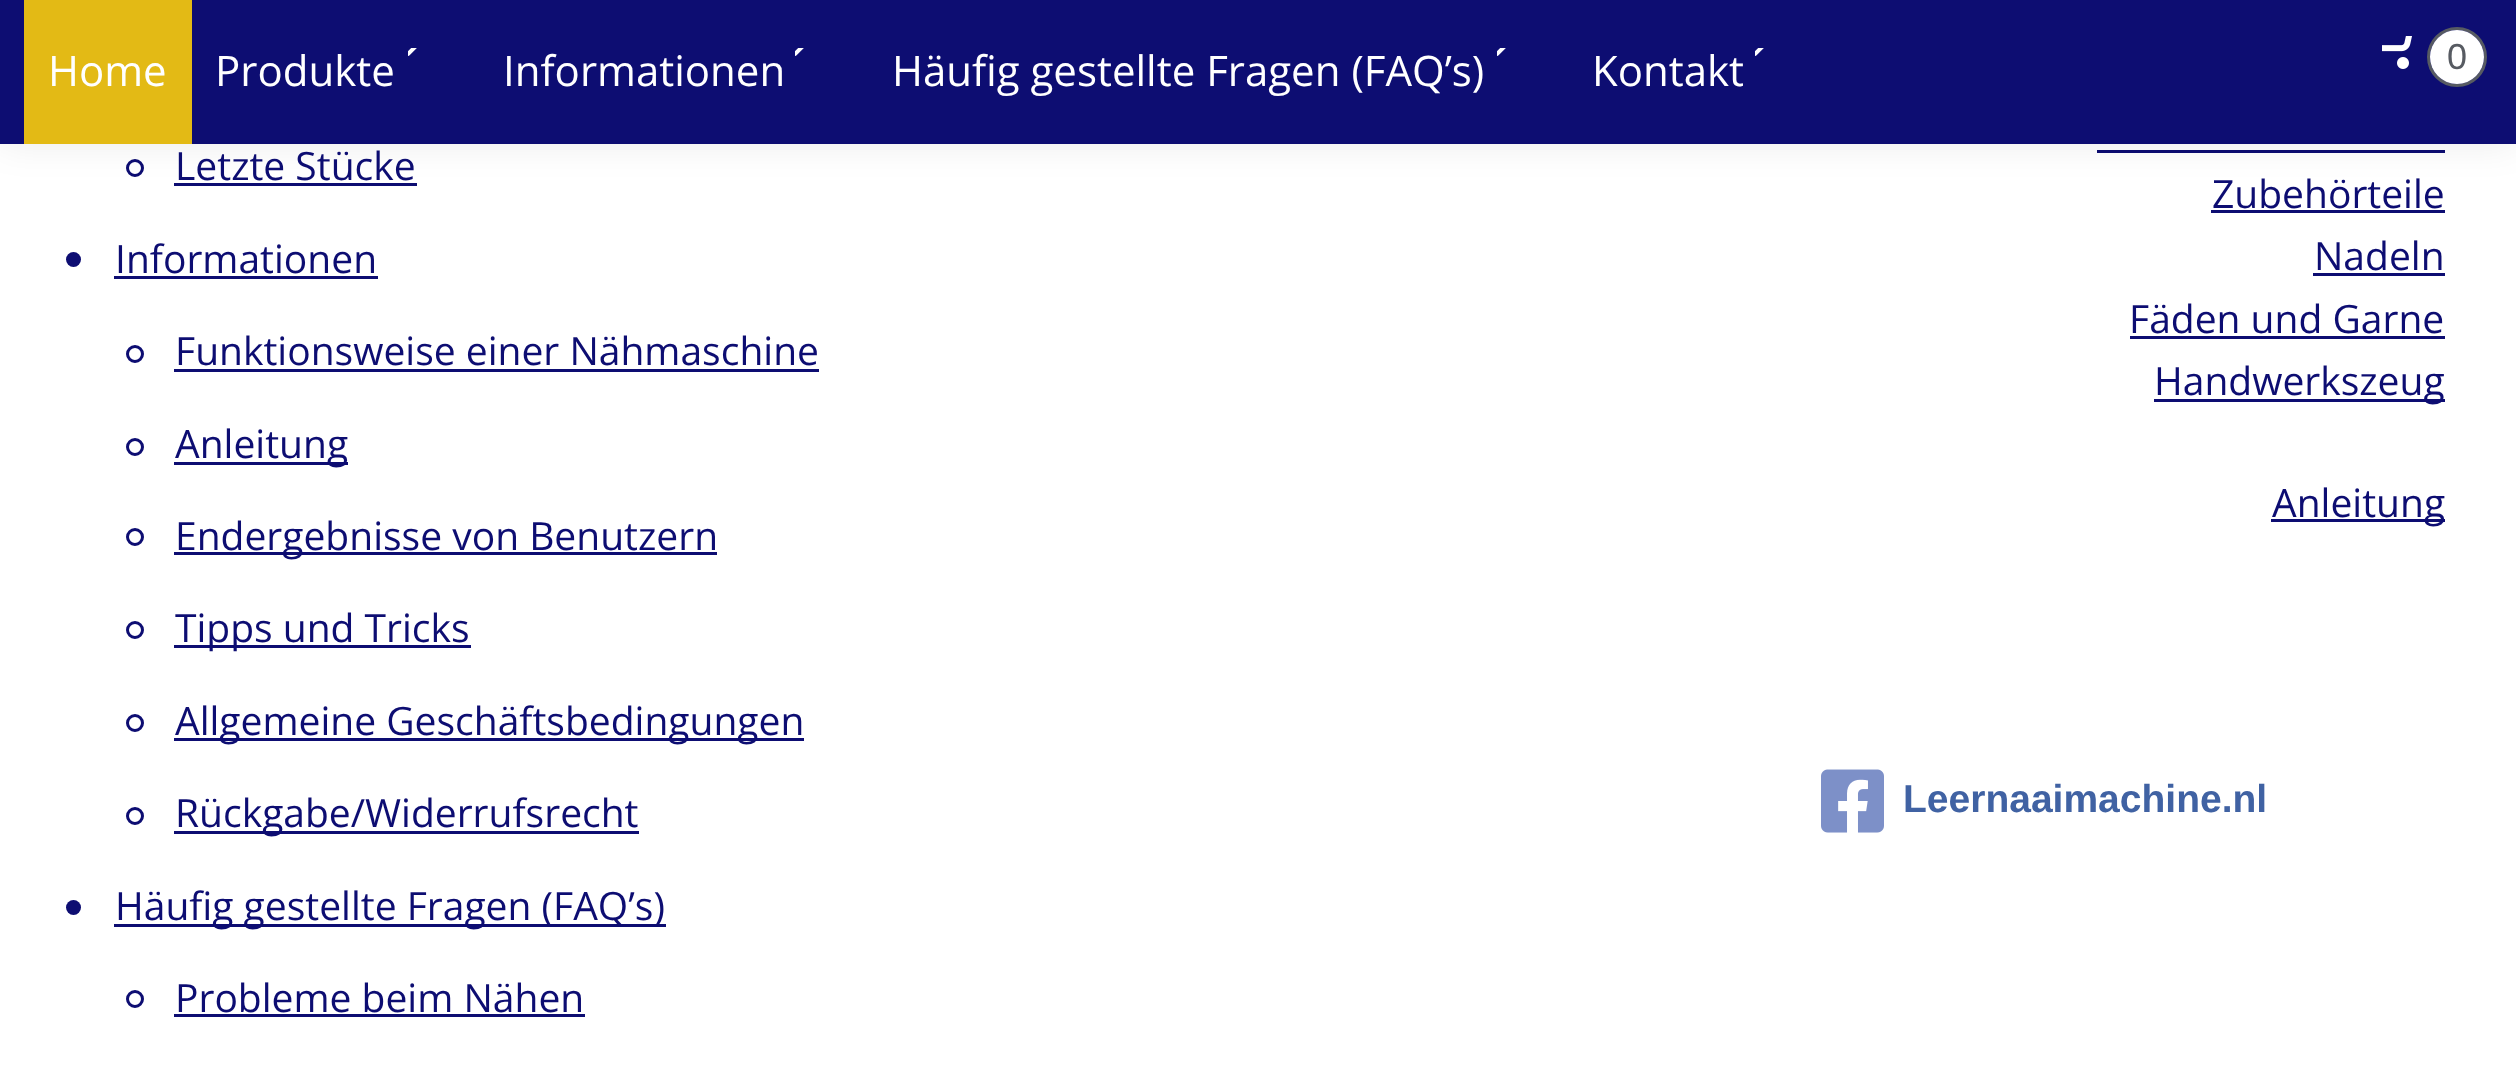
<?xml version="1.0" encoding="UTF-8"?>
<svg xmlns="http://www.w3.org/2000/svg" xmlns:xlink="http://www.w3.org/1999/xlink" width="2516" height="1074">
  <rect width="100%" height="100%" fill="#ffffff" />
  <circle cx="135" cy="168" r="7.5" fill="none" stroke="#0d0d72" stroke-width="3" />
  <rect x="174" y="183" width="243" height="3" fill="#0d0d72" />
  <rect x="2097" y="150" width="348" height="3" fill="#0d0d72" />
  <rect width="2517" height="144" fill="#000000" fill-opacity="0.08" filter="blur(18px)" />
  <rect width="2516" height="144" fill="#0d0d72" />
  <rect x="24" width="168" height="144" fill="#e3ba15" />
  <image x="408" y="48" width="9" height="8" xlink:href="image1.png" />
  <image x="795" y="48" width="9" height="8" xlink:href="image1.png" />
  <image x="1497" y="48" width="9" height="8" xlink:href="image1.png" />
  <image x="1755" y="48" width="9" height="8" xlink:href="image1.png" />
  <image x="2382" y="36" width="30" height="33" xlink:href="image2.png" />
  <circle cx="2457" cy="57" r="28.5" fill="none" stroke="#575b62" stroke-width="3" />
  <circle cx="2457" cy="57" r="27" fill="#ffffff" />
  <circle cx="73.5" cy="259.5" r="7.5" fill="#0d0d72" />
  <rect x="114" y="276" width="264" height="3" fill="#0d0d72" />
  <circle cx="135" cy="354" r="7.5" fill="none" stroke="#0d0d72" stroke-width="3" />
  <rect x="174" y="369" width="645" height="3" fill="#0d0d72" />
  <circle cx="135" cy="447" r="7.5" fill="none" stroke="#0d0d72" stroke-width="3" />
  <rect x="174" y="462" width="174" height="3" fill="#0d0d72" />
  <circle cx="135" cy="537" r="7.5" fill="none" stroke="#0d0d72" stroke-width="3" />
  <rect x="174" y="552" width="543" height="3" fill="#0d0d72" />
  <circle cx="135" cy="630" r="7.5" fill="none" stroke="#0d0d72" stroke-width="3" />
  <rect x="174" y="645" width="297" height="3" fill="#0d0d72" />
  <circle cx="135" cy="723" r="7.5" fill="none" stroke="#0d0d72" stroke-width="3" />
  <rect x="174" y="738" width="630" height="3" fill="#0d0d72" />
  <circle cx="135" cy="816" r="7.5" fill="none" stroke="#0d0d72" stroke-width="3" />
  <rect x="174" y="831" width="465" height="3" fill="#0d0d72" />
  <circle cx="73.5" cy="907.5" r="7.5" fill="#0d0d72" />
  <rect x="114" y="924" width="552" height="3" fill="#0d0d72" />
  <circle cx="135" cy="999" r="7.5" fill="none" stroke="#0d0d72" stroke-width="3" />
  <rect x="174" y="1014" width="411" height="3" fill="#0d0d72" />
  <rect x="2211" y="210" width="234" height="3" fill="#0d0d72" />
  <rect x="2313" y="273" width="132" height="3" fill="#0d0d72" />
  <rect x="2130" y="336" width="315" height="3" fill="#0d0d72" />
  <rect x="2154" y="399" width="291" height="3" fill="#0d0d72" />
  <rect x="2271" y="519" width="174" height="3" fill="#0d0d72" />
  <image x="1821" y="769" width="63" height="64" xlink:href="image3.png" />
  <text x="48" y="86" style="font-family: Open Sans; font-size: 42px; fill: #ffffff">Home</text>
  <text x="215" y="86" style="font-family: Open Sans; font-size: 42px; fill: #ffffff">Produkte</text>
  <text x="503" y="86" style="font-family: Open Sans; font-size: 42px; fill: #ffffff">Informationen</text>
  <text x="892" y="86" style="font-family: Open Sans; font-size: 42px; fill: #ffffff">Häufig gestellte Fragen (FAQ’s)</text>
  <text x="1592" y="86" style="font-family: Open Sans; font-size: 42px; fill: #ffffff">Kontakt</text>
  <text x="2447" y="69" style="font-family: Liberation Sans; font-size: 36px; fill: #575b62">0</text>
  <text x="175" y="180" style="font-family: Open Sans; font-size: 39px; fill: #0d0d72">Letzte Stücke</text>
  <text x="115" y="273" style="font-family: Open Sans; font-size: 39px; fill: #0d0d72">Informationen</text>
  <text x="175" y="365" style="font-family: Open Sans; font-size: 39px; fill: #0d0d72">Funktionsweise einer Nähmaschine</text>
  <text x="175" y="458" style="font-family: Open Sans; font-size: 39px; fill: #0d0d72">Anleitung</text>
  <text x="175" y="550" style="font-family: Open Sans; font-size: 39px; fill: #0d0d72">Endergebnisse von Benutzern</text>
  <text x="175" y="642" style="font-family: Open Sans; font-size: 39px; fill: #0d0d72">Tipps und Tricks</text>
  <text x="175" y="735" style="font-family: Open Sans; font-size: 39px; fill: #0d0d72">Allgemeine Geschäftsbedingungen</text>
  <text x="175" y="827" style="font-family: Open Sans; font-size: 39px; fill: #0d0d72">Rückgabe/Widerrufsrecht</text>
  <text x="115" y="920" style="font-family: Open Sans; font-size: 39px; fill: #0d0d72">Häufig gestellte Fragen (FAQ’s)</text>
  <text x="175" y="1012" style="font-family: Open Sans; font-size: 39px; fill: #0d0d72">Probleme beim Nähen</text>
  <text x="2212" y="208" style="font-family: Open Sans; font-size: 39px; fill: #0d0d72">Zubehörteile</text>
  <text x="2314" y="270" style="font-family: Open Sans; font-size: 39px; fill: #0d0d72">Nadeln</text>
  <text x="2129" y="333" style="font-family: Open Sans; font-size: 39px; fill: #0d0d72">Fäden und Garne</text>
  <text x="2154" y="395" style="font-family: Open Sans; font-size: 39px; fill: #0d0d72">Handwerkszeug</text>
  <text x="2272" y="517" style="font-family: Open Sans; font-size: 39px; fill: #0d0d72">Anleitung</text>
  <text x="1903" y="812" style="font-family: Liberation Sans; font-size: 39px; font-weight: bold; fill: #4062a3">Leernaaimachine.nl</text>
</svg>
